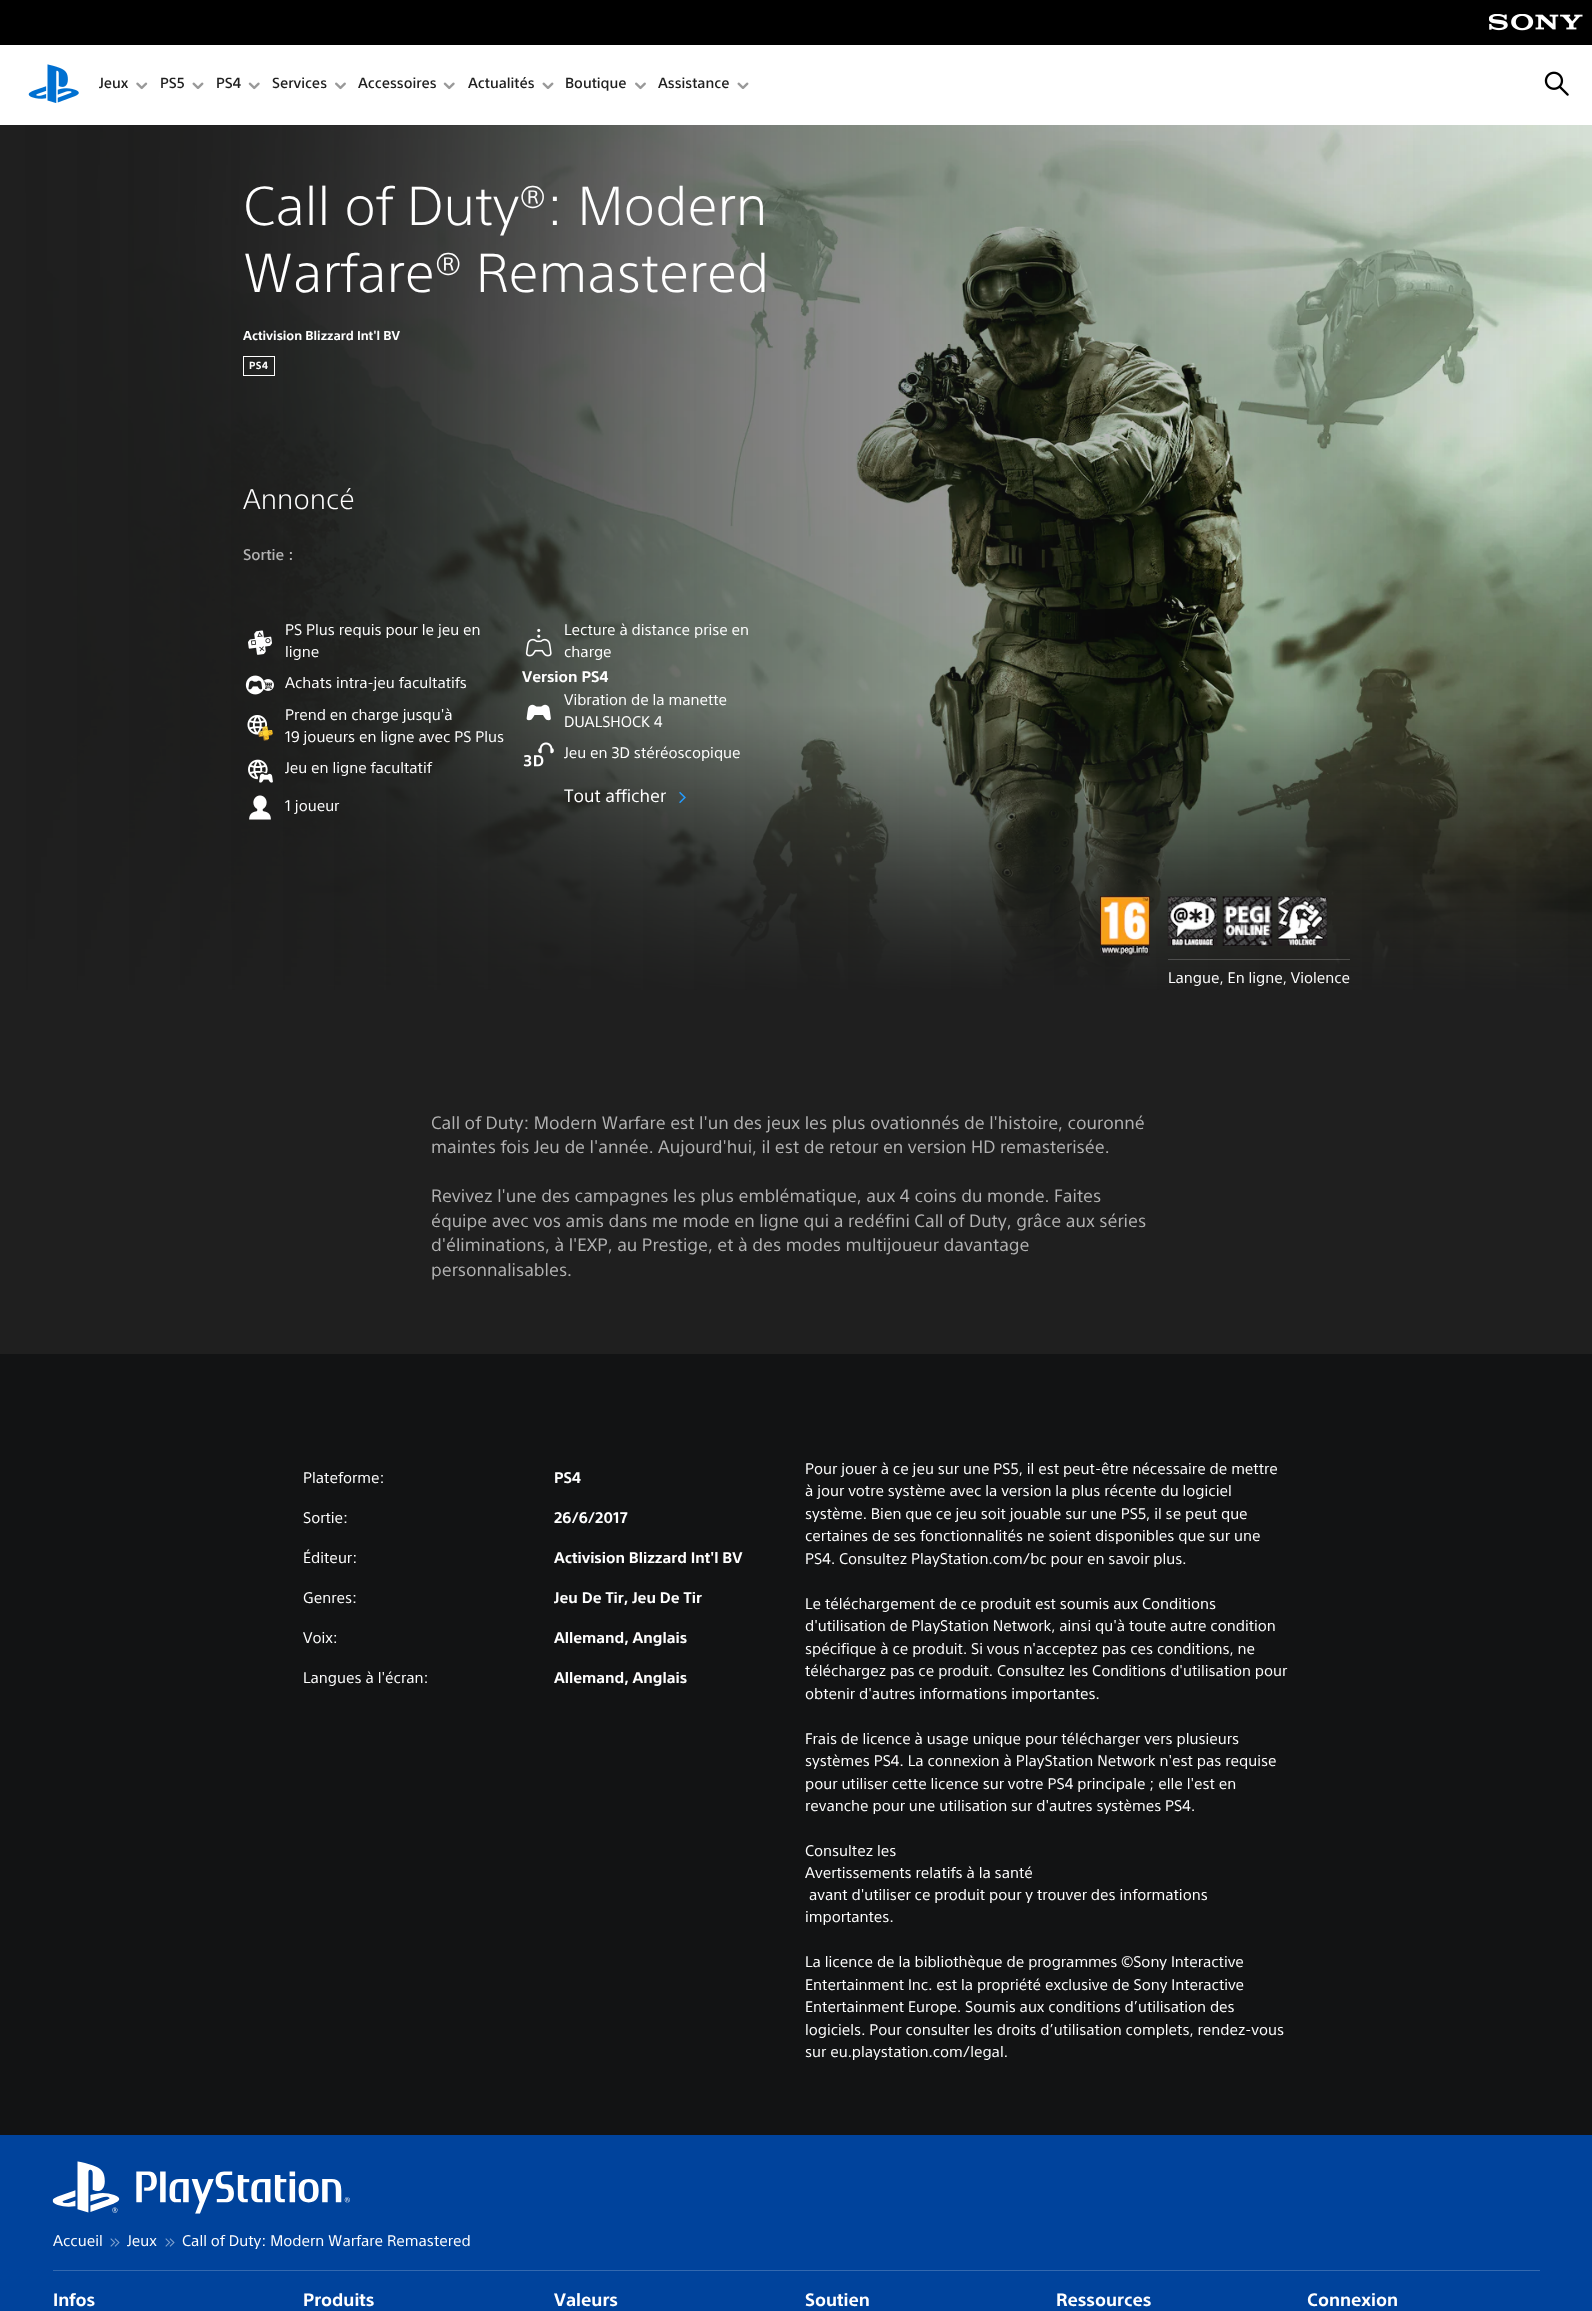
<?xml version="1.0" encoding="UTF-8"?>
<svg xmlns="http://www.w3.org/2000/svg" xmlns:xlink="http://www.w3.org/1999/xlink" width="1592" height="2311">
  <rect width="100%" height="100%" fill="#ffffff" />
  <rect width="1592" height="45" fill="#000000" />
  <image x="1489" y="14" width="94" height="17" xlink:href="image1.png" />
  <image x="28" y="64" width="51" height="40" xlink:href="image2.png" />
  <image x="136" y="82" width="12" height="8" xlink:href="image3.png" />
  <image x="192" y="82" width="12" height="7" xlink:href="image4.png" />
  <image x="248" y="82" width="12" height="8" xlink:href="image5.png" />
  <image x="335" y="82" width="11" height="8" xlink:href="image6.png" />
  <image x="443" y="82" width="12" height="8" xlink:href="image5.png" />
  <image x="542" y="82" width="12" height="7" xlink:href="image4.png" />
  <image x="635" y="82" width="11" height="8" xlink:href="image6.png" />
  <image x="737" y="82" width="12" height="7" xlink:href="image4.png" />
  <image x="1544" y="71" width="25" height="25" xlink:href="image7.png" />
  <rect y="990" width="1592" height="364" fill="#1f1f1f" />
  <image x="0" y="125" width="1592" height="865" xlink:href="image8.png" />
  <rect x="243.5" y="356.5" width="31" height="19" fill="none" stroke="#ffffff" />
  <image x="248" y="630" width="24" height="25" xlink:href="image9.png" />
  <image x="525" y="628" width="27" height="29" xlink:href="image10.png" />
  <image x="245" y="675" width="29" height="20" xlink:href="image11.png" />
  <image x="526" y="704" width="25" height="17" xlink:href="image12.png" />
  <image x="247" y="715" width="26" height="26" xlink:href="image13.png" />
  <image x="248" y="759" width="25" height="24" xlink:href="image14.png" />
  <image x="523" y="742" width="31" height="25" xlink:href="image15.png" />
  <image x="679" y="791" width="7" height="13" xlink:href="image16.png" />
  <image x="249" y="795" width="22" height="25" xlink:href="image17.png" />
  <image x="1100" y="896" width="50" height="60" xlink:href="image18.png" />
  <image x="1167" y="896" width="51" height="50" xlink:href="image19.png" />
  <image x="1222" y="896" width="51" height="50" xlink:href="image20.png" />
  <image x="1277" y="896" width="51" height="50" xlink:href="image21.png" />
  <rect x="1168" y="959" width="182" height="1" fill="#ffffff" fill-opacity="0.2" />
  <rect y="1354" width="1592" height="781" fill="#121314" />
  <rect y="2135" width="1592" height="176" fill="#00439c" />
  <image x="52" y="2161" width="298" height="53" xlink:href="image22.png" />
  <image x="110" y="2238" width="10" height="9" xlink:href="image23.png" />
  <image x="165" y="2238" width="10" height="9" xlink:href="image23.png" />
  <rect x="53" y="2270" width="1487" height="1" fill="#3369b0" />
  <text x="99" y="88" style="font-family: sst; font-size: 14.25px; font-weight: 500; fill: #1f1f1f">Jeux</text>
  <text x="160" y="88" style="font-family: sst; font-size: 14.25px; font-weight: 500; fill: #1f1f1f">PS5</text>
  <text x="216" y="88" style="font-family: sst; font-size: 14.25px; font-weight: 500; fill: #1f1f1f">PS4</text>
  <text x="272" y="88" style="font-family: sst; font-size: 14.25px; font-weight: 500; fill: #1f1f1f">Services</text>
  <text x="358" y="88" style="font-family: sst; font-size: 14.25px; font-weight: 500; fill: #1f1f1f">Accessoires</text>
  <text x="468" y="88" style="font-family: sst; font-size: 14.25px; font-weight: 500; fill: #1f1f1f">Actualités</text>
  <text x="565" y="88" style="font-family: sst; font-size: 14.25px; font-weight: 500; fill: #1f1f1f">Boutique</text>
  <text x="658" y="88" style="font-family: sst; font-size: 14.25px; font-weight: 500; fill: #1f1f1f">Assistance</text>
  <text x="243" y="225" style="font-family: sst; font-size: 53.5px; font-weight: 300; letter-spacing: 0.1px; fill: #ffffff">Call of Duty®: Modern</text>
  <text x="243" y="292" style="font-family: sst; font-size: 53.5px; font-weight: 300; letter-spacing: 0.1px; fill: #ffffff">Warfare® Remastered</text>
  <text x="243" y="340" style="font-family: sst; font-size: 12.5px; font-weight: bold; fill: #ffffff">Activision Blizzard Int'l BV</text>
  <text x="249" y="369" style="font-family: sst; font-size: 10px; font-weight: bold; letter-spacing: 0.5px; fill: #ffffff">PS4</text>
  <text x="243" y="509" style="font-family: sst; font-size: 27.5px; font-weight: 300; letter-spacing: 0.1px; fill: #ffffff">Annoncé</text>
  <text x="243" y="560" style="font-family: sst; font-size: 15px; font-weight: 500; fill: #b2b2b2">Sortie :</text>
  <text x="285" y="635" style="font-family: sst; font-size: 15px; fill: #ffffff">PS Plus requis pour le jeu en</text>
  <text x="285" y="657" style="font-family: sst; font-size: 15px; fill: #ffffff">ligne</text>
  <text x="564" y="635" style="font-family: sst; font-size: 15px; fill: #ffffff">Lecture à distance prise en</text>
  <text x="564" y="657" style="font-family: sst; font-size: 15px; fill: #ffffff">charge</text>
  <text x="285" y="688" style="font-family: sst; font-size: 15px; fill: #ffffff">Achats intra-jeu facultatifs</text>
  <text x="522" y="682" style="font-family: sst; font-size: 15px; font-weight: bold; fill: #ffffff">Version PS4</text>
  <text x="564" y="705" style="font-family: sst; font-size: 15px; fill: #ffffff">Vibration de la manette</text>
  <text x="564" y="727" style="font-family: sst; font-size: 15px; fill: #ffffff">DUALSHOCK 4</text>
  <text x="285" y="720" style="font-family: sst; font-size: 15px; fill: #ffffff">Prend en charge jusqu'à</text>
  <text x="285" y="742" style="font-family: sst; font-size: 15px; fill: #ffffff">19 joueurs en ligne avec PS Plus</text>
  <text x="285" y="773" style="font-family: sst; font-size: 15px; fill: #ffffff">Jeu en ligne facultatif</text>
  <text x="564" y="758" style="font-family: sst; font-size: 15px; fill: #ffffff">Jeu en 3D stéréoscopique</text>
  <text x="564" y="802" style="font-family: sst; font-size: 17.5px; fill: #ffffff">Tout afficher</text>
  <text x="285" y="811" style="font-family: sst; font-size: 15px; fill: #ffffff">1 joueur</text>
  <text x="1168" y="983" style="font-family: sst; font-size: 15px; fill: #ffffff">Langue, En ligne, Violence</text>
  <text x="431" y="1129" style="font-family: sst; font-size: 17.5px; fill: #b2b2b2">Call of Duty: Modern Warfare est l'un des jeux les plus ovationnés de l'histoire, couronné</text>
  <text x="431" y="1153" style="font-family: sst; font-size: 17.5px; fill: #b2b2b2">maintes fois Jeu de l'année. Aujourd'hui, il est de retour en version HD remasterisée.</text>
  <text x="431" y="1202" style="font-family: sst; font-size: 17.5px; fill: #b2b2b2">Revivez l'une des campagnes les plus emblématique, aux 4 coins du monde. Faites</text>
  <text x="431" y="1227" style="font-family: sst; font-size: 17.5px; fill: #b2b2b2">équipe avec vos amis dans me mode en ligne qui a redéfini Call of Duty, grâce aux séries</text>
  <text x="431" y="1251" style="font-family: sst; font-size: 17.5px; fill: #b2b2b2">d'éliminations, à l'EXP, au Prestige, et à des modes multijoueur davantage</text>
  <text x="431" y="1276" style="font-family: sst; font-size: 17.5px; fill: #b2b2b2">personnalisables.</text>
  <text x="303" y="1483" style="font-family: sst; font-size: 15px; fill: #ffffff">Plateforme:</text>
  <text x="554" y="1483" style="font-family: sst; font-size: 15px; font-weight: bold; fill: #ffffff">PS4</text>
  <text x="303" y="1523" style="font-family: sst; font-size: 15px; fill: #ffffff">Sortie:</text>
  <text x="554" y="1523" style="font-family: sst; font-size: 15px; font-weight: bold; fill: #ffffff">26/6/2017</text>
  <text x="303" y="1563" style="font-family: sst; font-size: 15px; fill: #ffffff">Éditeur:</text>
  <text x="554" y="1563" style="font-family: sst; font-size: 15px; font-weight: bold; fill: #ffffff">Activision Blizzard Int'l BV</text>
  <text x="303" y="1603" style="font-family: sst; font-size: 15px; fill: #ffffff">Genres:</text>
  <text x="554" y="1603" style="font-family: sst; font-size: 15px; font-weight: bold; fill: #ffffff">Jeu De Tir, Jeu De Tir</text>
  <text x="303" y="1643" style="font-family: sst; font-size: 15px; fill: #ffffff">Voix:</text>
  <text x="554" y="1643" style="font-family: sst; font-size: 15px; font-weight: bold; fill: #ffffff">Allemand, Anglais</text>
  <text x="303" y="1683" style="font-family: sst; font-size: 15px; fill: #ffffff">Langues à l'écran:</text>
  <text x="554" y="1683" style="font-family: sst; font-size: 15px; font-weight: bold; fill: #ffffff">Allemand, Anglais</text>
  <text x="805" y="1474" style="font-family: sst; font-size: 15px; fill: #ffffff">Pour jouer à ce jeu sur une PS5, il est peut-être nécessaire de mettre</text>
  <text x="805" y="1496" style="font-family: sst; font-size: 15px; fill: #ffffff">à jour votre système avec la version la plus récente du logiciel</text>
  <text x="805" y="1519" style="font-family: sst; font-size: 15px; fill: #ffffff">système. Bien que ce jeu soit jouable sur une PS5, il se peut que</text>
  <text x="805" y="1541" style="font-family: sst; font-size: 15px; fill: #ffffff">certaines de ses fonctionnalités ne soient disponibles que sur une</text>
  <text x="805" y="1564" style="font-family: sst; font-size: 15px; fill: #ffffff">PS4. Consultez PlayStation.com/bc pour en savoir plus.</text>
  <text x="805" y="1609" style="font-family: sst; font-size: 15px; fill: #ffffff">Le téléchargement de ce produit est soumis aux Conditions</text>
  <text x="805" y="1631" style="font-family: sst; font-size: 15px; fill: #ffffff">d'utilisation de PlayStation Network, ainsi qu'à toute autre condition</text>
  <text x="805" y="1654" style="font-family: sst; font-size: 15px; fill: #ffffff">spécifique à ce produit. Si vous n'acceptez pas ces conditions, ne</text>
  <text x="805" y="1676" style="font-family: sst; font-size: 15px; fill: #ffffff">téléchargez pas ce produit. Consultez les Conditions d'utilisation pour</text>
  <text x="805" y="1699" style="font-family: sst; font-size: 15px; fill: #ffffff">obtenir d'autres informations importantes.</text>
  <text x="805" y="1744" style="font-family: sst; font-size: 15px; fill: #ffffff">Frais de licence à usage unique pour télécharger vers plusieurs</text>
  <text x="805" y="1766" style="font-family: sst; font-size: 15px; fill: #ffffff">systèmes PS4. La connexion à PlayStation Network n'est pas requise</text>
  <text x="805" y="1789" style="font-family: sst; font-size: 15px; fill: #ffffff">pour utiliser cette licence sur votre PS4 principale ; elle l'est en</text>
  <text x="805" y="1811" style="font-family: sst; font-size: 15px; fill: #ffffff">revanche pour une utilisation sur d'autres systèmes PS4.</text>
  <text x="805" y="1856" style="font-family: sst; font-size: 15px; fill: #ffffff">Consultez les</text>
  <text x="805" y="1878" style="font-family: sst; font-size: 15px; fill: #ffffff">Avertissements relatifs à la santé</text>
  <text x="809" y="1900" style="font-family: sst; font-size: 15px; fill: #ffffff">avant d'utiliser ce produit pour y trouver des informations</text>
  <text x="805" y="1922" style="font-family: sst; font-size: 15px; fill: #ffffff">importantes.</text>
  <text x="805" y="1967" style="font-family: sst; font-size: 15px; fill: #ffffff">La licence de la bibliothèque de programmes ©Sony Interactive</text>
  <text x="805" y="1990" style="font-family: sst; font-size: 15px; fill: #ffffff">Entertainment Inc. est la propriété exclusive de Sony Interactive</text>
  <text x="805" y="2012" style="font-family: sst; font-size: 15px; fill: #ffffff">Entertainment Europe. Soumis aux conditions d’utilisation des</text>
  <text x="805" y="2035" style="font-family: sst; font-size: 15px; fill: #ffffff">logiciels. Pour consulter les droits d’utilisation complets, rendez-vous</text>
  <text x="805" y="2057" style="font-family: sst; font-size: 15px; fill: #ffffff">sur eu.playstation.com/legal.</text>
  <text x="53" y="2246" style="font-family: sst; font-size: 15px; fill: #ffffff">Accueil</text>
  <text x="127" y="2246" style="font-family: sst; font-size: 15px; fill: #ffffff">Jeux</text>
  <text x="182" y="2246" style="font-family: sst; font-size: 15px; fill: #ffffff">Call of Duty: Modern Warfare Remastered</text>
  <text x="53" y="2306" style="font-family: sst; font-size: 17.5px; font-weight: bold; fill: #ffffff">Infos</text>
  <text x="303" y="2306" style="font-family: sst; font-size: 17.5px; font-weight: bold; fill: #ffffff">Produits</text>
  <text x="554" y="2306" style="font-family: sst; font-size: 17.5px; font-weight: bold; fill: #ffffff">Valeurs</text>
  <text x="805" y="2306" style="font-family: sst; font-size: 17.5px; font-weight: bold; fill: #ffffff">Soutien</text>
  <text x="1056" y="2306" style="font-family: sst; font-size: 17.5px; font-weight: bold; fill: #ffffff">Ressources</text>
  <text x="1307" y="2306" style="font-family: sst; font-size: 17.5px; font-weight: bold; fill: #ffffff">Connexion</text>
</svg>
